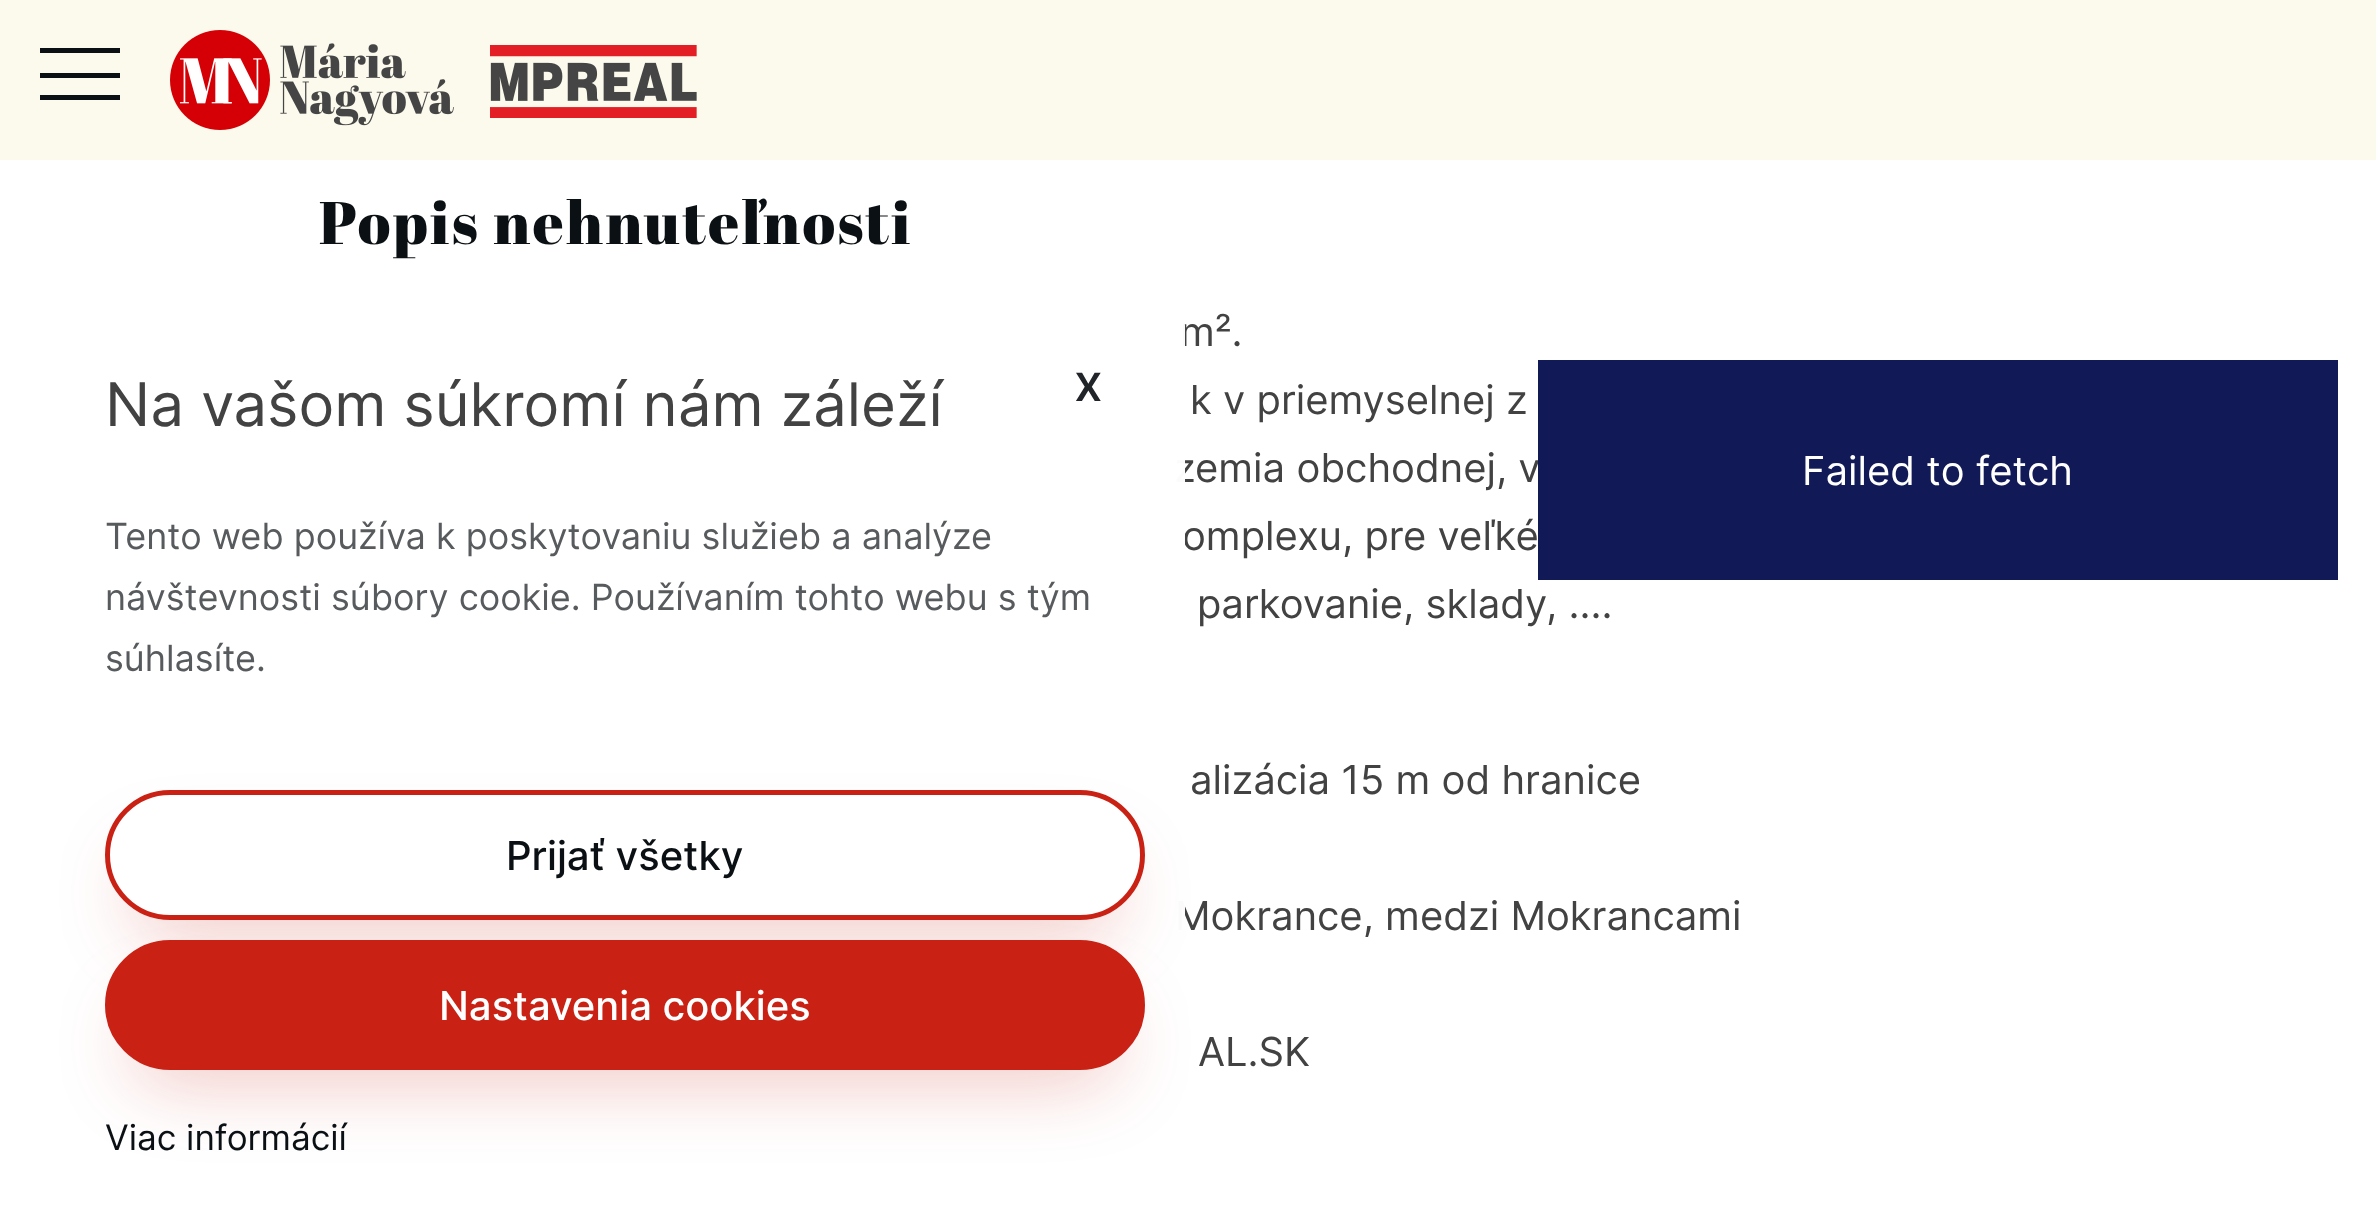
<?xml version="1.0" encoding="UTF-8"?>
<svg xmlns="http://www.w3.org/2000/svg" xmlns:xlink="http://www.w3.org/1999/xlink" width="2376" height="1226">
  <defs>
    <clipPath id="clip1"><path d="M 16 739 h 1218 v 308 h -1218 z m 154 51 h 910 c 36 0 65 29 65 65 c 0 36 -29 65 -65 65 h -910 c -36 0 -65 -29 -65 -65 c 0 -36 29 -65 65 -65 z" clip-rule="evenodd" /></clipPath>
  </defs>
  <rect width="100%" height="100%" fill="#ffffff" />
  <rect width="2376" height="160" fill="#fcfaed" />
  <rect x="40" y="73" width="80" height="5" fill="#0b1014" />
  <rect x="40" y="48" width="80" height="5" fill="#0b1014" />
  <rect x="40" y="95" width="80" height="5" fill="#0b1014" />
  <image x="170" y="30" width="527" height="100" xlink:href="image1.png" />
  <text x="319" y="244" style="font-family: Abril Fatface; font-size: 60px; letter-spacing: 2.4px; fill: #0b1014">Popis nehnuteľnosti</text>
  <text x="1180" y="346" style="font-family: Inter; font-size: 40px; fill: #424242">m².</text>
  <text x="1190" y="414" style="font-family: Inter; font-size: 40px; fill: #424242">k v priemyselnej z</text>
  <text x="1174" y="482" style="font-family: Inter; font-size: 40px; fill: #424242">zemia obchodnej, v</text>
  <text x="1182" y="550" style="font-family: Inter; font-size: 40px; fill: #424242">omplexu, pre veľké</text>
  <text x="1197" y="618" style="font-family: Inter; font-size: 40px; fill: #424242">parkovanie, sklady, ....</text>
  <text x="1190" y="794" style="font-family: Inter; font-size: 40px; fill: #424242">alizácia 15 m od hranice</text>
  <text x="1175" y="930" style="font-family: Inter; font-size: 40px; fill: #424242">Mokrance, medzi Mokrancami</text>
  <text x="1198" y="1066" style="font-family: Inter; font-size: 40px; fill: #424242">AL.SK</text>
  <rect x="65" y="288" width="1120" height="915" rx="38" fill="#ffffff" fill-opacity="0.98" />
  <text x="105" y="426" style="font-family: Inter; font-size: 60px; fill: #424242">Na vašom súkromí nám záleží</text>
  <text x="1074" y="401" style="font-family: Inter; font-size: 52px; font-weight: 500; fill: #212529">x</text>
  <text x="105" y="549" style="font-family: Inter; font-size: 36px; fill: #585b5e">Tento web používa k poskytovaniu služieb a analýze</text>
  <text x="105" y="610" style="font-family: Inter; font-size: 36px; fill: #585b5e">návštevnosti súbory cookie. Používaním tohto webu s tým</text>
  <text x="105" y="671" style="font-family: Inter; font-size: 36px; fill: #585b5e">súhlasíte.</text>
  <g clip-path="url(#clip1)">
    <rect x="130" y="853" width="990" height="80" rx="40" fill="#c92215" fill-opacity="0.25" filter="blur(37.5px)" />
  </g>
  <rect x="107.5" y="792.5" width="1035" height="125" rx="62.5" fill="none" stroke="#c92215" stroke-width="5" />
  <text x="506" y="870" style="font-family: Inter; font-size: 40px; font-weight: 500; fill: #0b1014">Prijať všetky</text>
  <rect x="130" y="1003" width="990" height="80" rx="40" fill="#c92215" fill-opacity="0.25" filter="blur(37.5px)" />
  <rect x="107.5" y="942.5" width="1035" height="125" rx="62.5" fill="#c92215" stroke="#c92215" stroke-width="5" />
  <text x="439" y="1020" style="font-family: Inter; font-size: 40px; font-weight: 500; fill: #ffffff">Nastavenia cookies</text>
  <text x="105" y="1150" style="font-family: Inter; font-size: 35px; fill: #0b1014">Viac informácií</text>
  <rect x="1538" y="360" width="800" height="220" fill="#111956" />
  <text x="1802" y="485" style="font-family: Inter; font-size: 40px; fill: #ffffff">Failed to fetch</text>
</svg>
